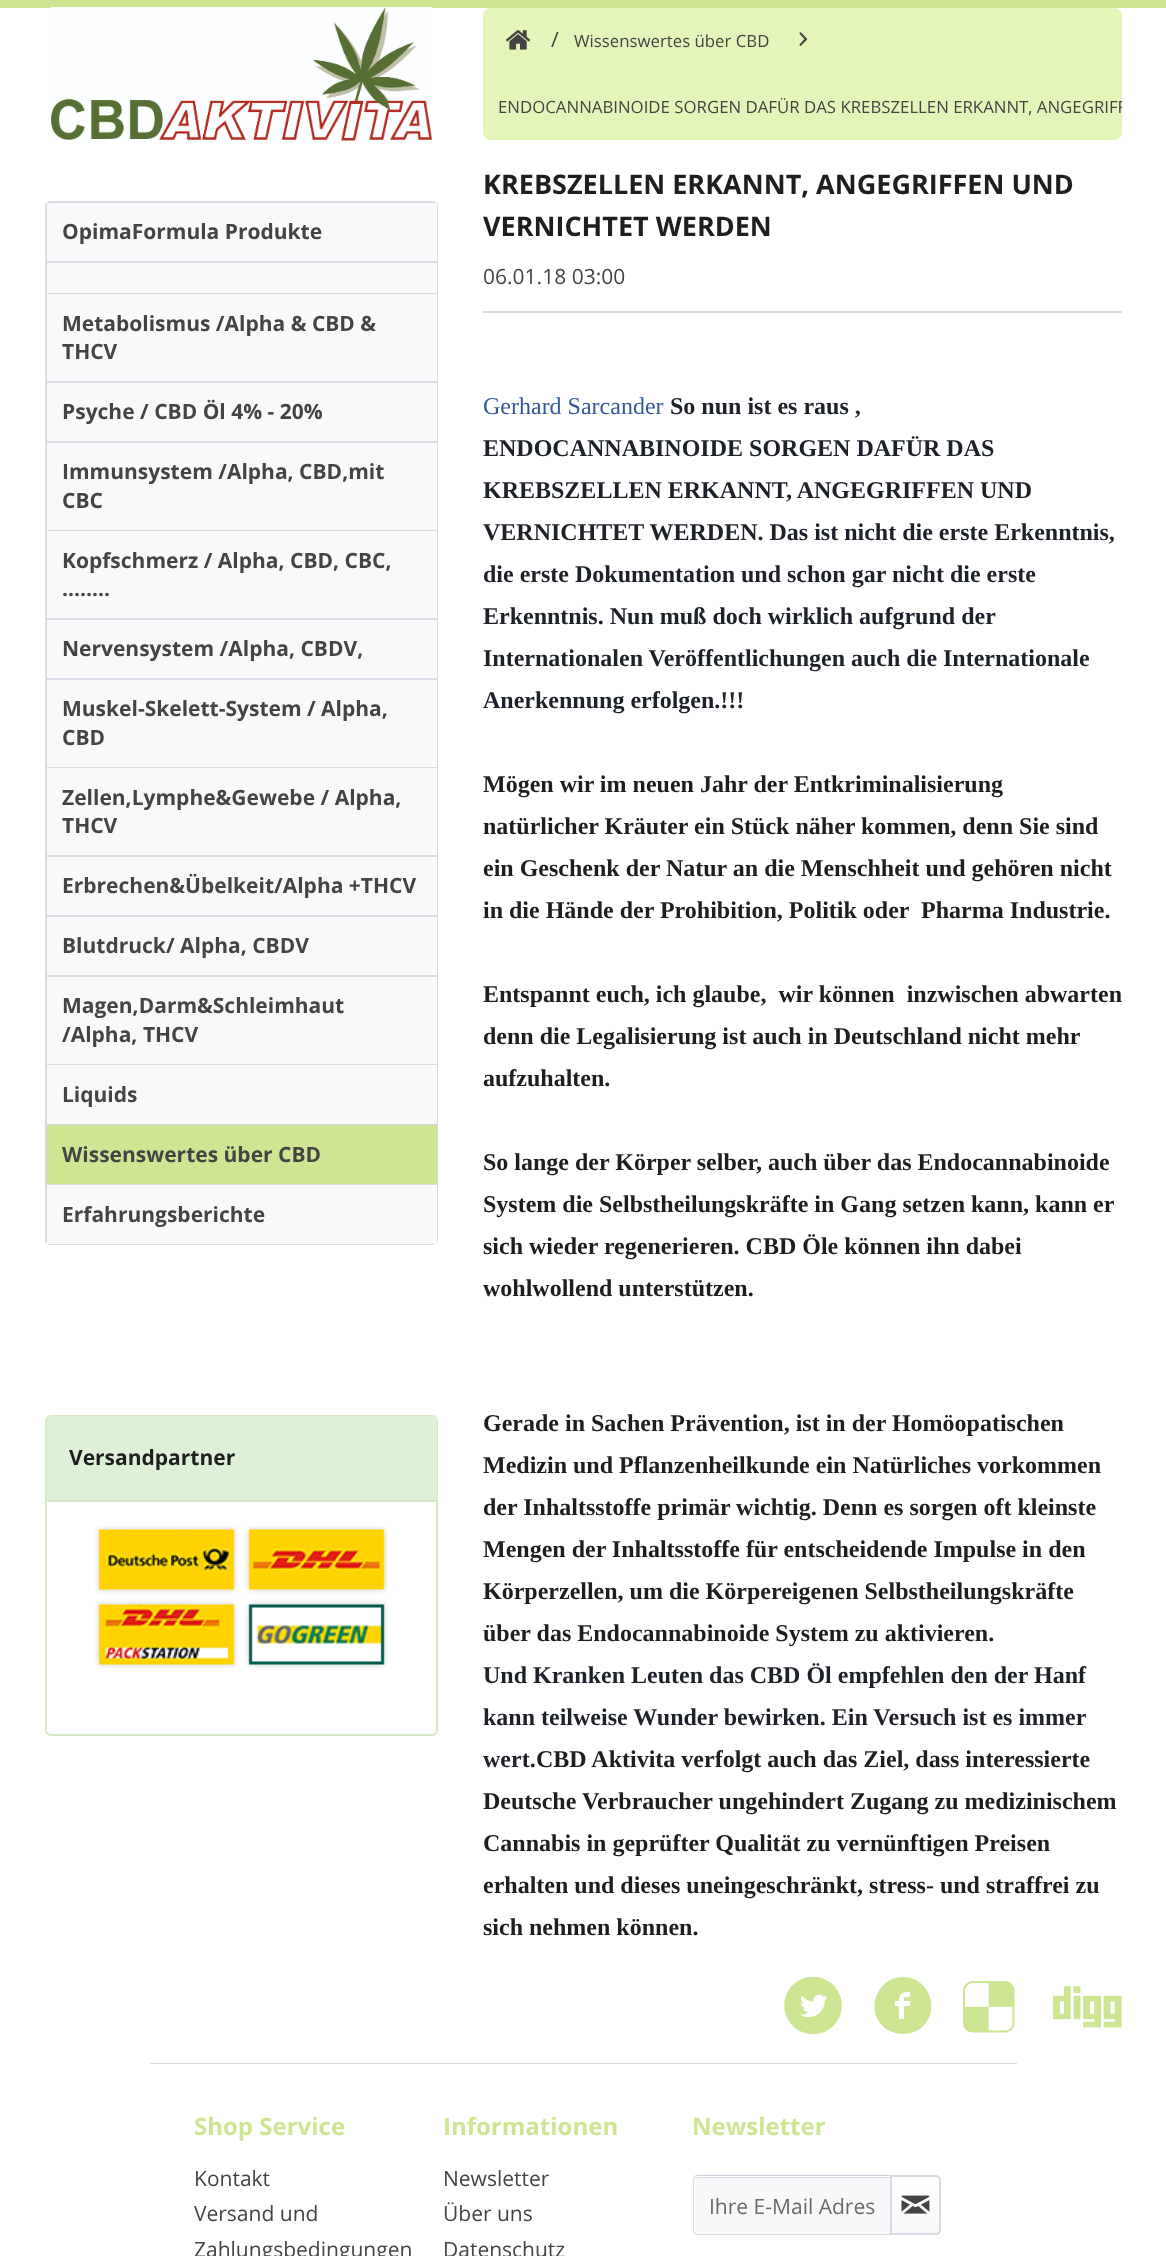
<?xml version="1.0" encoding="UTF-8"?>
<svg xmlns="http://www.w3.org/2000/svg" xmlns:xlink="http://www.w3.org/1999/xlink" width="1166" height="2256">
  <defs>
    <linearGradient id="g1" gradientUnits="userSpaceOnUse" x1="915" y1="2177" x2="915" y2="2234"><stop offset="0" stop-color="#ffffff" /><stop offset="1" stop-color="#f8f8fa" /></linearGradient>
    <clipPath id="clip1"><rect x="483" y="8" width="639" height="132" rx="8" /></clipPath>
  </defs>
  <rect width="100%" height="100%" fill="#ffffff" />
  <rect width="1166" height="8" fill="#cee693" />
  <image x="51" y="7" width="381" height="134" xlink:href="image1.png" />
  <rect x="46" y="202" width="391" height="1042" rx="4" fill="none" stroke="#dadae5" stroke-width="2" />
  <rect x="47" y="203" width="390" height="58" fill="#f9f9f9" />
  <rect x="47" y="261" width="390" height="2" fill="#dadae5" />
  <rect x="47" y="263" width="390" height="30" fill="#f9f9f9" />
  <rect x="47" y="293" width="390" height="1" fill="#dadae5" />
  <rect x="47" y="294" width="390" height="87" fill="#f9f9f9" />
  <rect x="47" y="381" width="390" height="2" fill="#dadae5" />
  <rect x="47" y="383" width="390" height="58" fill="#f9f9f9" />
  <rect x="47" y="441" width="390" height="2" fill="#dadae5" />
  <rect x="47" y="443" width="390" height="87" fill="#f9f9f9" />
  <rect x="47" y="530" width="390" height="1" fill="#dadae5" />
  <rect x="47" y="531" width="390" height="87" fill="#f9f9f9" />
  <rect x="47" y="618" width="390" height="2" fill="#dadae5" />
  <rect x="47" y="620" width="390" height="58" fill="#f9f9f9" />
  <rect x="47" y="678" width="390" height="2" fill="#dadae5" />
  <rect x="47" y="680" width="390" height="87" fill="#f9f9f9" />
  <rect x="47" y="767" width="390" height="1" fill="#dadae5" />
  <rect x="47" y="768" width="390" height="87" fill="#f9f9f9" />
  <rect x="47" y="855" width="390" height="2" fill="#dadae5" />
  <rect x="47" y="857" width="390" height="58" fill="#f9f9f9" />
  <rect x="47" y="915" width="390" height="2" fill="#dadae5" />
  <rect x="47" y="917" width="390" height="58" fill="#f9f9f9" />
  <rect x="47" y="975" width="390" height="2" fill="#dadae5" />
  <rect x="47" y="977" width="390" height="87" fill="#f9f9f9" />
  <rect x="47" y="1064" width="390" height="1" fill="#dadae5" />
  <rect x="47" y="1065" width="390" height="59" fill="#f9f9f9" />
  <rect x="47" y="1124" width="390" height="1" fill="#dadae5" />
  <rect x="47" y="1184" width="390" height="1" fill="#dadae5" />
  <rect x="47" y="1125" width="390" height="59" fill="#cee693" />
  <rect x="47" y="1185" width="390" height="59" fill="#f9f9f9" />
  <rect x="46" y="1416" width="391" height="319" rx="5" fill="none" stroke="#d6e9c6" stroke-width="2" />
  <path d="M 52 1416 h 380 c 3 0 5 2 5 5 v 81 h -390 v -81 c 0 -3 2 -5 5 -5 z" fill="#dff0d8" />
  <rect x="47" y="1500" width="390" height="2" fill="#d6e9c6" />
  <image x="95" y="1526" width="293" height="142" xlink:href="image2.png" />
  <rect x="483" y="8" width="639" height="132" rx="8" fill="#e3f5b8" />
  <image x="506" y="30" width="25" height="20" xlink:href="image3.png" />
  <image x="799" y="32" width="9" height="14" xlink:href="image4.png" />
  <rect x="483" y="311" width="639" height="2" fill="#dadae5" />
  <image x="784" y="1976" width="58" height="59" xlink:href="image5.png" />
  <path d="M 903 1977 c -27 0 -39 35 -17 52 c 5 3 11 5 17 5 c 6 0 12 -2 17 -5 c 22 -17 10 -52 -17 -52 z m 7 20 c -6 0 -6 -1 -6 4 h 6 v 5 h -6 v 13 h -5 v -13 h -4 v -5 h 4 c 0 -8 3 -9 11 -9 z" fill="#cee693" />
  <image x="963" y="1981" width="52" height="52" xlink:href="image6.png" />
  <image x="1053" y="1986" width="69" height="42" xlink:href="image7.png" />
  <rect x="150" y="2063" width="867" height="1" fill="#dadae5" />
  <path d="M 698 2177 h 192 v 57 h -192 c -1.5 0 -3 -1.5 -3 -3 v -51 c 0 -1.5 1.5 -3 3 -3 z" fill="#f8f8fa" />
  <path d="M 698 2178 h 192 v -1 h -192 l -3 2 z" fill="#dadae5" />
  <path d="M 698 2175 c -2 0 -3 1 -4 1 l 1 1 c 1 -1 2 -1 3 -1 h 192 l 1 -1 z" fill="#cbcbdb" />
  <path d="M 891 2235 l -1 -1 h -192 c -1 0 -2 0 -3 -1 l -1 1 c 1 0 2 1 4 1 z" fill="#dadae5" />
  <path d="M 693 2180 v 50 c 0 2 1 3 1 4 l 1 -1 l -1 -3 v -50 l 1 -3 l -1 -1 c 0 1 -1 2 -1 4 z" fill="#dadae5" />
  <path d="M 891 2177 h 45 c 1.5 0 3 1.5 3 3 v 51 c 0 1.5 -1.5 3 -3 3 h -45 z" fill="url(#g1)" />
  <path d="M 891 2176 h 45 c 2 0 4 2 4 4 v 50 c 0 2 -2 4 -4 4 h -45 z" fill="none" stroke="#dadae5" stroke-width="2" />
  <image x="901" y="2195" width="29" height="19" xlink:href="image8.png" />
  <text x="62" y="239" style="font-family: Open Sans; font-size: 21px; font-weight: bold; fill: #444444">OpimaFormula Produkte</text>
  <text x="62" y="331" style="font-family: Open Sans; font-size: 21px; font-weight: bold; fill: #444444">Metabolismus /Alpha &amp; CBD &amp;</text>
  <text x="62" y="359" style="font-family: Open Sans; font-size: 21px; font-weight: bold; fill: #444444">THCV</text>
  <text x="62" y="419" style="font-family: Open Sans; font-size: 21px; font-weight: bold; fill: #444444">Psyche / CBD Öl 4% - 20%</text>
  <text x="62" y="479" style="font-family: Open Sans; font-size: 21px; font-weight: bold; fill: #444444">Immunsystem /Alpha, CBD,mit</text>
  <text x="62" y="508" style="font-family: Open Sans; font-size: 21px; font-weight: bold; fill: #444444">CBC</text>
  <text x="62" y="568" style="font-family: Open Sans; font-size: 21px; font-weight: bold; fill: #444444">Kopfschmerz / Alpha, CBD, CBC,</text>
  <text x="62" y="596" style="font-family: Open Sans; font-size: 21px; font-weight: bold; fill: #444444">........</text>
  <text x="62" y="656" style="font-family: Open Sans; font-size: 21px; font-weight: bold; fill: #444444">Nervensystem /Alpha, CBDV,</text>
  <text x="62" y="716" style="font-family: Open Sans; font-size: 21px; font-weight: bold; fill: #444444">Muskel-Skelett-System / Alpha,</text>
  <text x="62" y="745" style="font-family: Open Sans; font-size: 21px; font-weight: bold; fill: #444444">CBD</text>
  <text x="62" y="805" style="font-family: Open Sans; font-size: 21px; font-weight: bold; fill: #444444">Zellen,Lymphe&amp;Gewebe / Alpha,</text>
  <text x="62" y="833" style="font-family: Open Sans; font-size: 21px; font-weight: bold; fill: #444444">THCV</text>
  <text x="62" y="893" style="font-family: Open Sans; font-size: 21px; font-weight: bold; fill: #444444">Erbrechen&amp;Übelkeit/Alpha +THCV</text>
  <text x="62" y="953" style="font-family: Open Sans; font-size: 21px; font-weight: bold; fill: #444444">Blutdruck/ Alpha, CBDV</text>
  <text x="62" y="1013" style="font-family: Open Sans; font-size: 21px; font-weight: bold; fill: #444444">Magen,Darm&amp;Schleimhaut</text>
  <text x="62" y="1042" style="font-family: Open Sans; font-size: 21px; font-weight: bold; fill: #444444">/Alpha, THCV</text>
  <text x="62" y="1102" style="font-family: Open Sans; font-size: 21px; font-weight: bold; fill: #444444">Liquids</text>
  <text x="62" y="1162" style="font-family: Open Sans; font-size: 21px; font-weight: bold; fill: #444444">Wissenswertes über CBD</text>
  <text x="62" y="1222" style="font-family: Open Sans; font-size: 21px; font-weight: bold; fill: #444444">Erfahrungsberichte</text>
  <text x="69" y="1465" style="font-family: Open Sans; font-size: 21px; font-weight: bold; fill: #1e1e1e">Versandpartner</text>
  <text x="551" y="47" style="font-family: Open Sans; font-size: 21px; fill: #444444">/</text>
  <text x="574" y="47" style="font-family: Open Sans; font-size: 16.8px; fill: #444444">Wissenswertes über CBD</text>
  <g clip-path="url(#clip1)">
    <text x="498" y="113" style="font-family: Open Sans; font-size: 16.8px; fill: #444444">ENDOCANNABINOIDE SORGEN DAFÜR DAS KREBSZELLEN ERKANNT, ANGEGRIFF</text>
  </g>
  <text x="483" y="194" style="font-family: Open Sans; font-size: 27px; font-weight: bold; fill: #1e1e1e">KREBSZELLEN ERKANNT, ANGEGRIFFEN UND</text>
  <text x="483" y="236" style="font-family: Open Sans; font-size: 27px; font-weight: bold; fill: #1e1e1e">VERNICHTET WERDEN</text>
  <text x="483" y="284" style="font-family: Open Sans; font-size: 21px; fill: #444444">06.01.18 03:00</text>
  <text x="483" y="414" style="font-family: Liberation Serif; font-size: 24px; fill: #365899">Gerhard Sarcander</text>
  <text x="670" y="414" style="font-family: Liberation Serif; font-size: 24px; font-weight: bold; fill: #1d2129">So nun ist es raus ,</text>
  <text x="483" y="456" style="font-family: Liberation Serif; font-size: 24px; font-weight: bold; fill: #1d2129">ENDOCANNABINOIDE SORGEN DAFÜR DAS</text>
  <text x="483" y="498" style="font-family: Liberation Serif; font-size: 24px; font-weight: bold; fill: #1d2129">KREBSZELLEN ERKANNT, ANGEGRIFFEN UND</text>
  <text x="483" y="540" style="font-family: Liberation Serif; font-size: 24px; font-weight: bold; fill: #1d2129">VERNICHTET WERDEN. Das ist nicht die erste Erkenntnis,</text>
  <text x="483" y="582" style="font-family: Liberation Serif; font-size: 24px; font-weight: bold; fill: #1d2129">die erste Dokumentation und schon gar nicht die erste</text>
  <text x="483" y="624" style="font-family: Liberation Serif; font-size: 24px; font-weight: bold; fill: #1d2129">Erkenntnis. Nun muß doch wirklich aufgrund der</text>
  <text x="483" y="666" style="font-family: Liberation Serif; font-size: 24px; font-weight: bold; fill: #1d2129">Internationalen Veröffentlichungen auch die Internationale</text>
  <text x="483" y="708" style="font-family: Liberation Serif; font-size: 24px; font-weight: bold; fill: #1d2129">Anerkennung erfolgen.!!!</text>
  <text x="483" y="792" style="font-family: Liberation Serif; font-size: 24px; font-weight: bold; fill: #1e1e1e">Mögen wir im neuen Jahr der Entkriminalisierung</text>
  <text x="483" y="834" style="font-family: Liberation Serif; font-size: 24px; font-weight: bold; fill: #1e1e1e">natürlicher Kräuter ein Stück näher kommen, denn Sie sind</text>
  <text x="483" y="876" style="font-family: Liberation Serif; font-size: 24px; font-weight: bold; fill: #1e1e1e">ein Geschenk der Natur an die Menschheit und gehören nicht</text>
  <text x="483" y="918" style="font-family: Liberation Serif; font-size: 24px; font-weight: bold; fill: #1e1e1e" xml:space="preserve">in die Hände der Prohibition, Politik oder  Pharma Industrie.</text>
  <text x="483" y="1002" style="font-family: Liberation Serif; font-size: 24px; font-weight: bold; fill: #1e1e1e" xml:space="preserve">Entspannt euch, ich glaube,  wir können  inzwischen abwarten</text>
  <text x="483" y="1044" style="font-family: Liberation Serif; font-size: 24px; font-weight: bold; fill: #1e1e1e">denn die Legalisierung ist auch in Deutschland nicht mehr</text>
  <text x="483" y="1086" style="font-family: Liberation Serif; font-size: 24px; font-weight: bold; fill: #1e1e1e">aufzuhalten.</text>
  <text x="483" y="1170" style="font-family: Liberation Serif; font-size: 24px; font-weight: bold; fill: #1e1e1e">So lange der Körper selber, auch über das Endocannabinoide</text>
  <text x="483" y="1212" style="font-family: Liberation Serif; font-size: 24px; font-weight: bold; fill: #1e1e1e">System die Selbstheilungskräfte in Gang setzen kann, kann er</text>
  <text x="483" y="1254" style="font-family: Liberation Serif; font-size: 24px; font-weight: bold; fill: #1e1e1e">sich wieder regenerieren. CBD Öle können ihn dabei</text>
  <text x="483" y="1296" style="font-family: Liberation Serif; font-size: 24px; font-weight: bold; fill: #1e1e1e">wohlwollend unterstützen.</text>
  <text x="483" y="1431" style="font-family: Liberation Serif; font-size: 24px; font-weight: bold; fill: #1e1e1e">Gerade in Sachen Prävention, ist in der Homöopatischen</text>
  <text x="483" y="1473" style="font-family: Liberation Serif; font-size: 24px; font-weight: bold; fill: #1e1e1e">Medizin und Pflanzenheilkunde ein Natürliches vorkommen</text>
  <text x="483" y="1515" style="font-family: Liberation Serif; font-size: 24px; font-weight: bold; fill: #1e1e1e">der Inhaltsstoffe primär wichtig. Denn es sorgen oft kleinste</text>
  <text x="483" y="1557" style="font-family: Liberation Serif; font-size: 24px; font-weight: bold; fill: #1e1e1e">Mengen der Inhaltsstoffe für entscheidende Impulse in den</text>
  <text x="483" y="1599" style="font-family: Liberation Serif; font-size: 24px; font-weight: bold; fill: #1e1e1e">Körperzellen, um die Körpereigenen Selbstheilungskräfte</text>
  <text x="483" y="1641" style="font-family: Liberation Serif; font-size: 24px; font-weight: bold; fill: #1e1e1e">über das Endocannabinoide System zu aktivieren.</text>
  <text x="483" y="1683" style="font-family: Liberation Serif; font-size: 24px; font-weight: bold; fill: #1d2129">Und Kranken Leuten das CBD Öl empfehlen den der Hanf</text>
  <text x="483" y="1725" style="font-family: Liberation Serif; font-size: 24px; font-weight: bold; fill: #1d2129">kann teilweise Wunder bewirken. Ein Versuch ist es immer</text>
  <text x="483" y="1767" style="font-family: Liberation Serif; font-size: 24px; font-weight: bold; fill: #1d2129">wert.</text>
  <text x="536" y="1767" style="font-family: Liberation Serif; font-size: 24px; font-weight: bold; fill: #1e1e1e">CBD Aktivita verfolgt auch das Ziel, dass interessierte</text>
  <text x="483" y="1809" style="font-family: Liberation Serif; font-size: 24px; font-weight: bold; fill: #1e1e1e">Deutsche Verbraucher ungehindert Zugang zu medizinischem</text>
  <text x="483" y="1851" style="font-family: Liberation Serif; font-size: 24px; font-weight: bold; fill: #1e1e1e">Cannabis in geprüfter Qualität zu vernünftigen Preisen</text>
  <text x="483" y="1893" style="font-family: Liberation Serif; font-size: 24px; font-weight: bold; fill: #1e1e1e">erhalten und dieses uneingeschränkt, stress- und straffrei zu</text>
  <text x="483" y="1935" style="font-family: Liberation Serif; font-size: 24px; font-weight: bold; fill: #1e1e1e">sich nehmen können.</text>
  <text x="194" y="2135" style="font-family: Open Sans; font-size: 24px; font-weight: bold; fill: #cee693">Shop Service</text>
  <text x="194" y="2186" style="font-family: Open Sans; font-size: 21px; fill: #444444">Kontakt</text>
  <text x="194" y="2221" style="font-family: Open Sans; font-size: 21px; fill: #444444">Versand und</text>
  <text x="194" y="2257" style="font-family: Open Sans; font-size: 21px; fill: #444444">Zahlungsbedingungen</text>
  <text x="443" y="2135" style="font-family: Open Sans; font-size: 24px; font-weight: bold; fill: #cee693">Informationen</text>
  <text x="443" y="2186" style="font-family: Open Sans; font-size: 21px; fill: #444444">Newsletter</text>
  <text x="443" y="2221" style="font-family: Open Sans; font-size: 21px; fill: #444444">Über uns</text>
  <text x="443" y="2257" style="font-family: Open Sans; font-size: 21px; fill: #444444">Datenschutz</text>
  <text x="692" y="2135" style="font-family: Open Sans; font-size: 24px; font-weight: bold; fill: #cee693">Newsletter</text>
  <text x="709" y="2214" style="font-family: Open Sans; font-size: 21px; fill: #6a6a6a">Ihre E-Mail Adres</text>
</svg>
